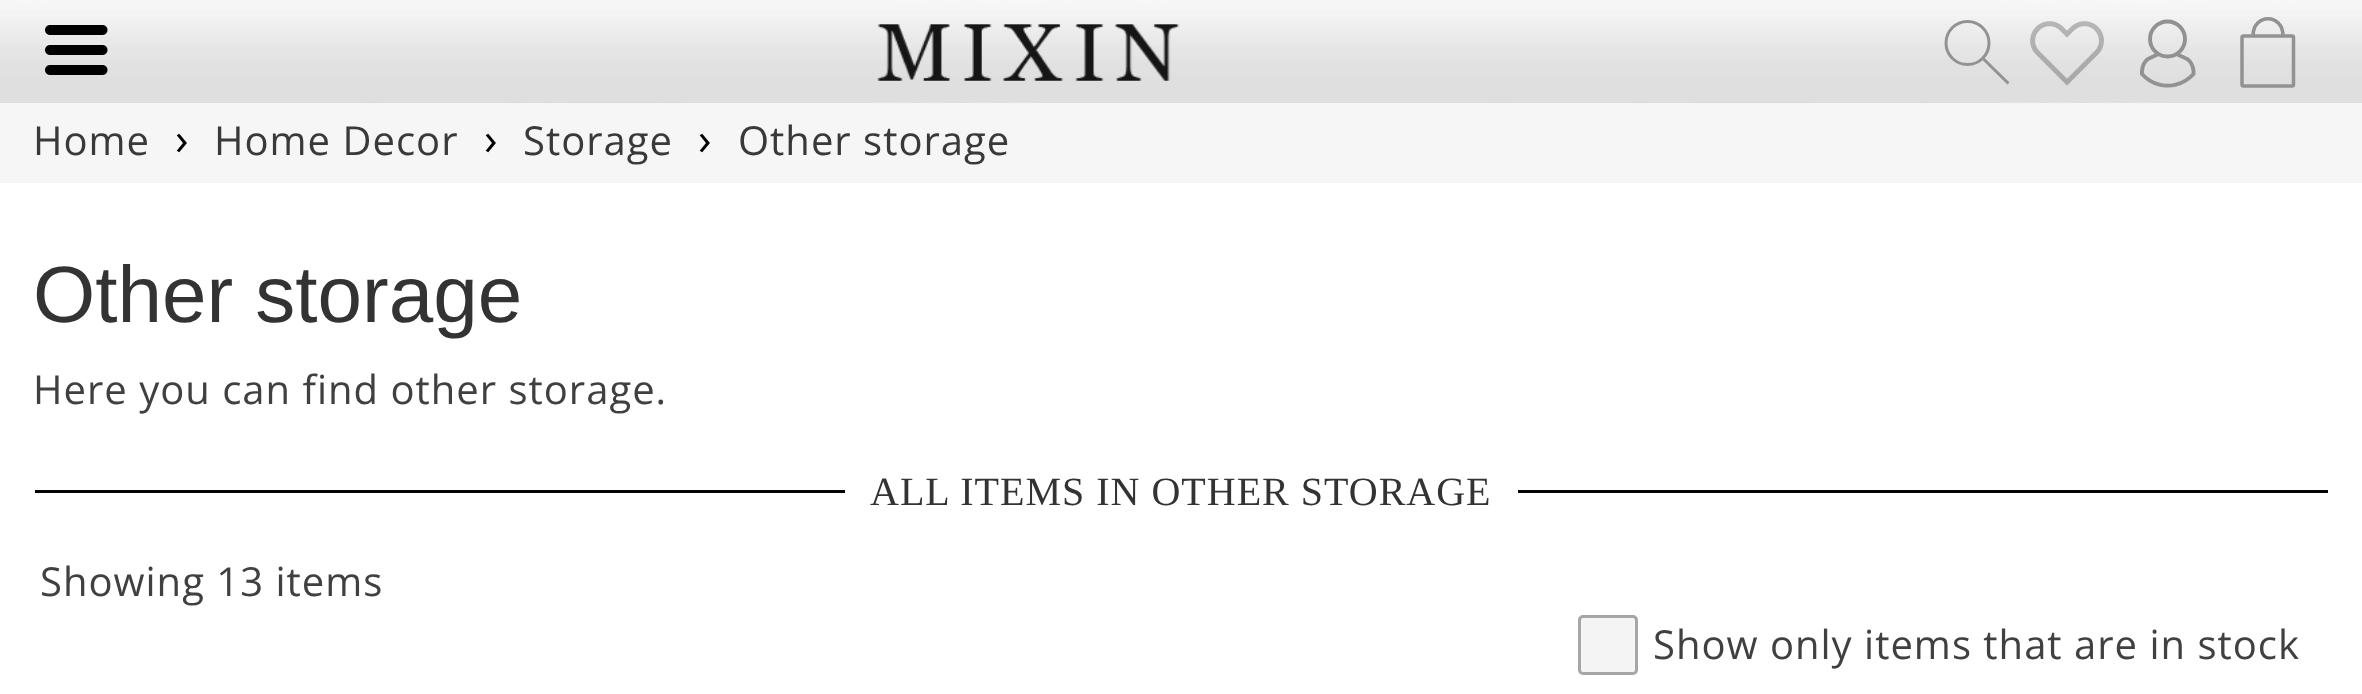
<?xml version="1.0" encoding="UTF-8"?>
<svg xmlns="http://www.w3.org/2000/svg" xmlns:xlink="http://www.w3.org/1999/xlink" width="2362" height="694">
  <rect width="100%" height="100%" fill="#ffffff" />
  <image x="0" y="0" width="2362" height="103" xlink:href="image1.png" />
  <image x="0" y="102" width="2362" height="1" xlink:href="image6.png" />
  <image x="0" y="0" width="2362" height="103" xlink:href="image2.png" />
  <image x="45" y="25" width="63" height="50" xlink:href="image3.png" />
  <image x="877" y="24" width="303" height="57" xlink:href="image4.png" />
  <circle cx="1967.5" cy="43" r="21.5" fill="none" stroke="#929292" stroke-width="3" />
  <path d="M 1983 58.5 l 25.5 25" fill="none" stroke="#929292" stroke-width="3" />
  <image x="2030" y="21" width="74" height="65" xlink:href="image5.png" />
  <circle cx="2167.5" cy="39" r="17.5" fill="none" stroke="#929292" stroke-width="3.9" />
  <path d="M 2167.5 85.5 c 0 0 14 1.5 26 -11.5 c 0 0 1 -12.5 -8.5 -16 l -6.5 -3 l -0.5 -2.5 m -10 33 c 0 0 -14.5 1.5 -26 -11.5 c 0 0 -1 -12.5 8 -16 l 6.5 -3 l 0.5 -2.5" fill="none" stroke="#929292" stroke-width="3.9" />
  <path d="M 2292 86 h -48.5 c -1 0 -1.5 -0.5 -1.5 -1.5 v -47 c 0 -1 0.5 -1.5 1.5 -1.5 h 48.5 c 1 0 1.5 0.5 1.5 1.5 v 47 c 0 1 -0.5 1.5 -1.5 1.5 z" fill="none" stroke="#929292" stroke-width="3.5" />
  <path d="M 2253 36 c 0 -23 30 -23 30 0" fill="none" stroke="#929292" stroke-width="3.5" />
  <rect y="103" width="2362" height="80" fill="#f6f6f6" />
  <rect x="35" y="490" width="2293" height="3" fill="#050404" />
  <rect x="845" y="490" width="673" height="3" fill="#ffffff" />
  <rect x="1579.5" y="616.5" width="57" height="57" rx="3.5" fill="#f4f4f4" stroke="#a6a6a6" stroke-width="3" />
  <text x="33" y="155" style="font-family: Open Sans; font-size: 40px; letter-spacing: 1px; fill: #393939">Home</text>
  <text x="175" y="155" style="font-family: Open Sans; font-size: 45px; letter-spacing: 1px; fill: #000000">›</text>
  <text x="214" y="155" style="font-family: Open Sans; font-size: 40px; letter-spacing: 1px; fill: #393939">Home Decor</text>
  <text x="484" y="155" style="font-family: Open Sans; font-size: 45px; letter-spacing: 1px; fill: #000000">›</text>
  <text x="523" y="155" style="font-family: Open Sans; font-size: 40px; letter-spacing: 1px; fill: #393939">Storage</text>
  <text x="698" y="155" style="font-family: Open Sans; font-size: 45px; letter-spacing: 1px; fill: #000000">›</text>
  <text x="738" y="155" style="font-family: Open Sans; font-size: 40px; letter-spacing: 1px; fill: #393939">Other storage</text>
  <text x="33" y="322" style="font-family: Liberation Sans; font-size: 80px; fill: #333333">Other storage</text>
  <text x="33" y="404" style="font-family: Open Sans; font-size: 40px; letter-spacing: 1px; fill: #404040">Here you can find other storage.</text>
  <text x="870" y="505" style="font-family: Liberation Serif; font-size: 40px; letter-spacing: 1px; fill: #333333">ALL ITEMS IN OTHER STORAGE</text>
  <text x="40" y="596" style="font-family: Open Sans; font-size: 40px; letter-spacing: 1px; fill: #404040">Showing 13 items</text>
  <text x="1653" y="659" style="font-family: Open Sans; font-size: 40px; letter-spacing: 1px; fill: #404040">Show only items that are in stock</text>
</svg>
